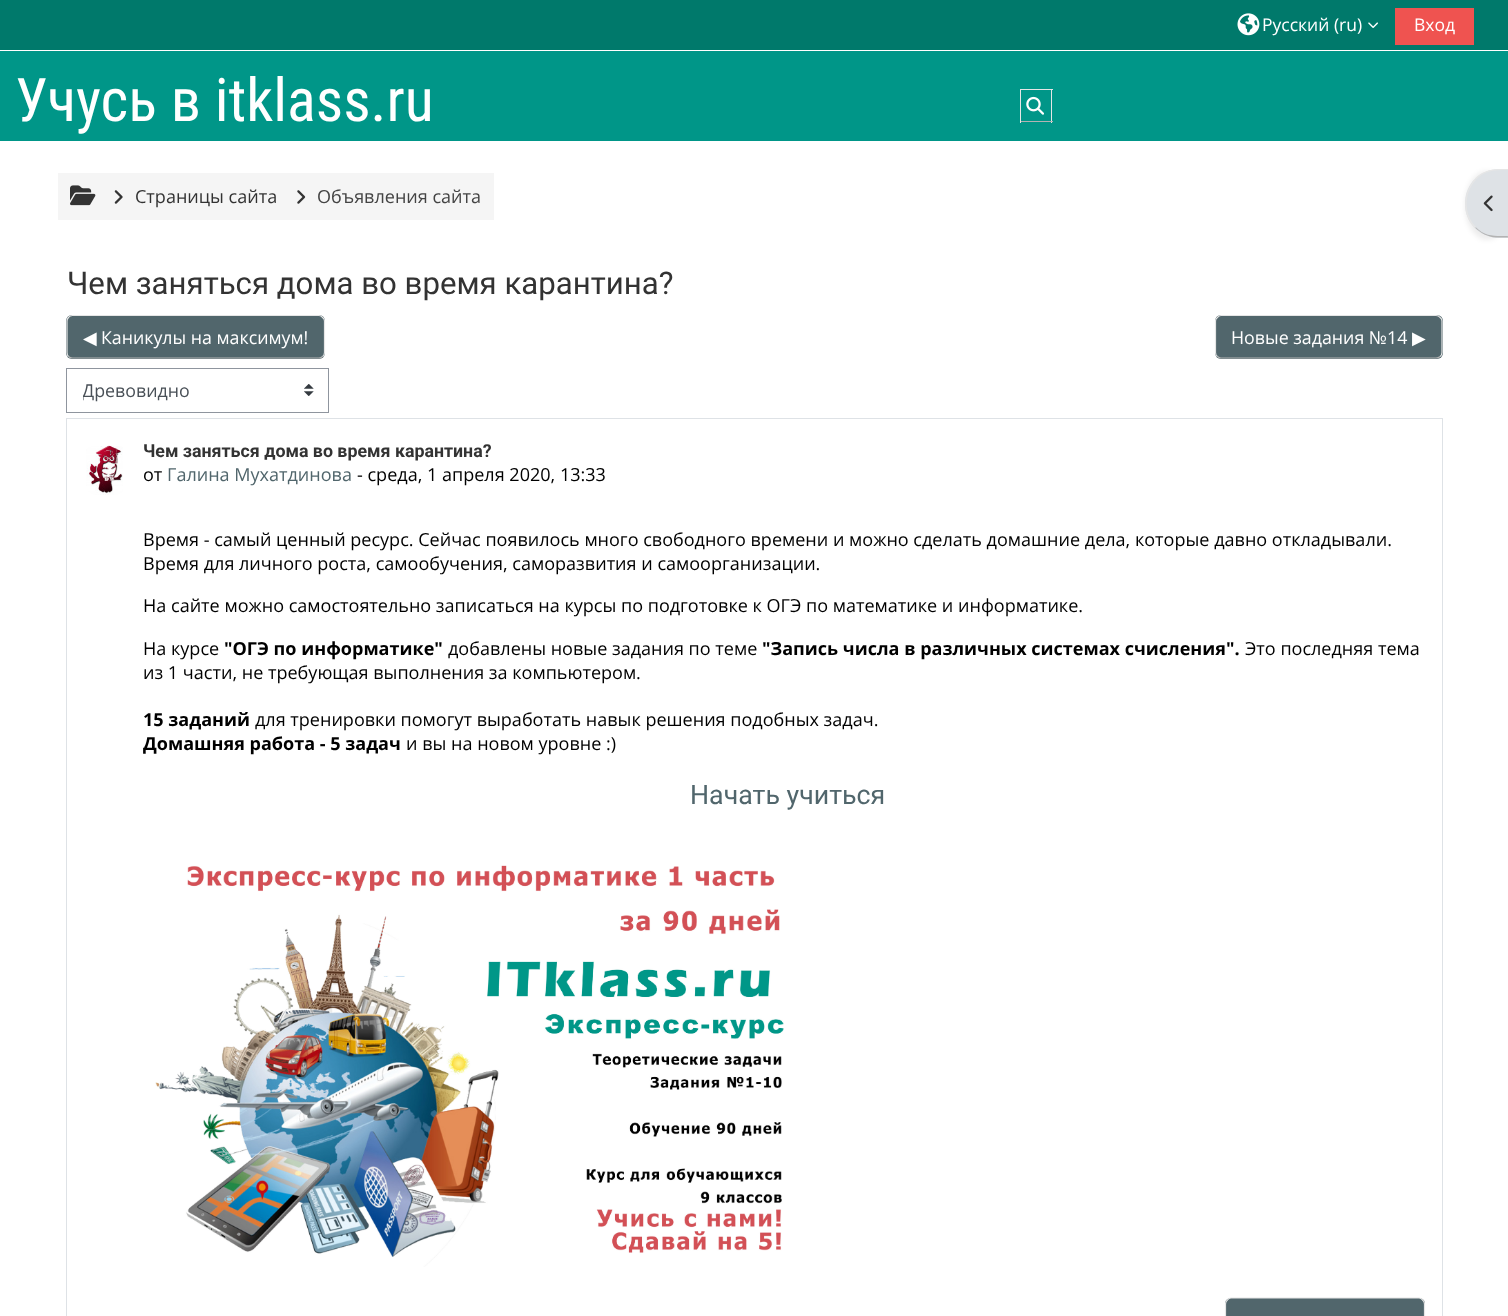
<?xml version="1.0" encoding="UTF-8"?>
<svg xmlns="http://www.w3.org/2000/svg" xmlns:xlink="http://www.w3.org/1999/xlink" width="1508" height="1316">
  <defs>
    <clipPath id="clip1"><rect x="83" y="378" width="212" height="26" /></clipPath>
  </defs>
  <rect width="100%" height="100%" fill="#ffffff" />
  <rect y="51" width="1508" height="90" fill="#009688" />
  <rect width="1508" height="50" fill="#00796b" />
  <image x="1237" y="13" width="23" height="23" xlink:href="image1.png" />
  <image x="1368" y="22" width="10" height="6" xlink:href="image2.png" />
  <rect x="1395" y="8" width="79" height="37" fill="#ef5350" />
  <rect x="1020" y="89" width="33" height="1" fill="#e6e6e6" />
  <rect x="1051" y="89" width="1" height="34" fill="#e6e6e6" />
  <rect x="1020" y="121" width="33" height="1" fill="#b3b3b3" />
  <rect x="1020" y="89" width="1" height="34" fill="#e6e6e6" />
  <image x="1026" y="96" width="18" height="19" xlink:href="image3.png" />
  <rect x="58" y="173" width="436" height="47" fill="#f5f5f5" />
  <image x="70" y="185" width="26" height="21" xlink:href="image4.png" />
  <image x="114" y="190" width="9" height="14" xlink:href="image5.png" />
  <image x="297" y="190" width="9" height="14" xlink:href="image6.png" />
  <rect x="66" y="315" width="259" height="44" rx="6" fill="#51666c" />
  <path d="M 322.5 356.5 c -1 1 -2.5 1.5 -3.5 1.5 h -246.5 c -1.5 0 -3 -0.5 -4 -1.5" fill="none" stroke="#b3b3b3" stroke-width="1.2" />
  <path d="M 68.5 356.5 c -1 -1 -1.5 -2.5 -1.5 -4 v -31.5 c 0 -1 0.5 -2.5 1.5 -3.5 c 1 -1.5 2.5 -2 4 -2 h 246.5 c 1 0 2.5 0.5 3.5 2 c 1.5 1 2 2.5 2 3.5 v 31.5 c 0 1.5 -0.5 3 -2 4" fill="none" stroke="#e6e6e6" stroke-width="1.2" />
  <rect x="1215" y="315" width="228" height="44" rx="6" fill="#51666c" />
  <path d="M 1440 356.5 c -1 1 -2.5 1.5 -4 1.5 h -215 c -1 0 -2.5 -0.5 -3.5 -1.5" fill="none" stroke="#b3b3b3" stroke-width="1.2" />
  <path d="M 1217.5 356.5 c -1.5 -1 -2 -2.5 -2 -4 v -31.5 c 0 -1 0.5 -2.5 2 -3.5 c 1 -1.5 2.5 -2 3.5 -2 h 215 c 1.5 0 3 0.5 4 2 c 1.5 1 2 2.5 2 3.5 v 31.5 c 0 1.5 -0.5 3 -2 4" fill="none" stroke="#e6e6e6" stroke-width="1.2" />
  <image x="304" y="384" width="10" height="12" xlink:href="image7.png" />
  <rect x="66.5" y="368.5" width="262" height="44" fill="none" stroke="#8f959e" />
  <rect x="66.5" y="418.5" width="1376" height="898" fill="none" stroke="#dee2e6" />
  <image x="86" y="445" width="37" height="50" xlink:href="image8.png" />
  <image x="155" y="865" width="629" height="402" xlink:href="image9.png" />
  <path d="M 1231 1298 h 188 c 3.5 0 6 2.5 6 6 v 12 h -200 v -12 c 0 -3.5 2.5 -6 6 -6 z" fill="#51666c" />
  <path d="M 1227.5 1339 c -1.5 -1 -2 -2.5 -2 -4 v -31 c 0 -1.5 0.5 -3 2 -4 c 1 -1.5 2.5 -2 3.5 -2 h 188 c 1 0 2.5 0.5 3.5 2 c 1.5 1 2 2.5 2 4 v 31 c 0 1.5 -0.5 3 -2 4" fill="none" stroke="#e6e6e6" stroke-width="1.2" />
  <rect x="1465" y="171" width="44" height="69" rx="34" fill="#000000" fill-opacity="0.07" filter="blur(2.5px)" />
  <path d="M 1499 169 h 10 v 69 h -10 c -19 0 -34 -15 -34 -34 v -1 c 0 -19 15 -34 34 -34 z" fill="#dee2e6" />
  <path d="M 1499 169 c -10 0 -18.5 4 -24 9.5 l 1 1 c 9.5 -9.5 19 -9.5 31.5 -9.5 l 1 -1 z" fill="#e6e6e6" />
  <path d="M 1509 237.5 h -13 c -8 -0.5 -15.5 -4.5 -21 -10 l 0.5 -0.5 c 10 10 19 9 32 9 z" fill="#b3b3b3" />
  <path d="M 1475 179 c -12 13 -14 35 0 49 l 1 -1 c -13 -13 -12 -35 0 -47 z" fill="#e6e6e6" />
  <image x="1483" y="195" width="10" height="17" xlink:href="image10.png" />
  <text x="1262" y="31" style="font-family: Open Sans; font-size: 17.5px; fill: #ffffff">Русский (ru)</text>
  <text x="1414" y="31" style="font-family: Open Sans; font-size: 17.5px; fill: #ffffff">Вход</text>
  <text x="15" y="121" style="font-family: Roboto Condensed; font-size: 60px; fill: #ffffff">Учусь в itklass.ru</text>
  <text x="135" y="203" style="font-family: Open Sans; font-size: 18.05px; fill: #333333">Страницы сайта</text>
  <text x="317" y="203" style="font-family: Open Sans; font-size: 18.05px; fill: #444444">Объявления сайта</text>
  <text x="67" y="294" style="font-family: Roboto; font-size: 31.2px; fill: #333333">Чем заняться дома во время карантина?</text>
  <text x="83" y="344" style="font-family: DejaVu Sans; font-size: 17.8px; fill: #ffffff">◀︎</text>
  <text x="101" y="344" style="font-family: Open Sans; font-size: 17.8px; fill: #ffffff">Каникулы на максимум!</text>
  <text x="1231" y="344" style="font-family: Open Sans; font-size: 17.8px; fill: #ffffff">Новые задания №14</text>
  <text x="1412" y="344" style="font-family: DejaVu Sans; font-size: 17.8px; fill: #ffffff">▶︎</text>
  <g clip-path="url(#clip1)">
    <text x="82" y="397" style="font-family: Open Sans; font-size: 17.8px; fill: #495057">Древовидно</text>
  </g>
  <text x="143" y="457" style="font-family: Roboto; font-size: 17.8px; font-weight: bold; fill: #333333">Чем заняться дома во время карантина?</text>
  <text x="143" y="481" style="font-family: Open Sans; font-size: 18.05px; fill: #000000">от</text>
  <text x="167" y="481" style="font-family: Open Sans; font-size: 18.05px; fill: #51666c">Галина Мухатдинова</text>
  <text x="357" y="481" style="font-family: Open Sans; font-size: 18.05px; fill: #000000">- среда, 1 апреля 2020, 13:33</text>
  <text x="143" y="546" style="font-family: Open Sans; font-size: 18.05px; fill: #000000">Время - самый ценный ресурс. Сейчас появилось много свободного времени и можно сделать домашние дела, которые давно откладывали.</text>
  <text x="143" y="570" style="font-family: Open Sans; font-size: 18.05px; fill: #000000">Время для личного роста, самообучения, саморазвития и самоорганизации.</text>
  <text x="143" y="612" style="font-family: Open Sans; font-size: 18.05px; fill: #000000">На сайте можно самостоятельно записаться на курсы по подготовке к ОГЭ по математике и информатике.</text>
  <text x="143" y="655" style="font-family: Open Sans; font-size: 18.05px; fill: #000000">На курсе</text>
  <text x="224" y="655" style="font-family: Open Sans; font-size: 18.05px; font-weight: bold; fill: #000000">"ОГЭ по информатике"</text>
  <text x="448" y="655" style="font-family: Open Sans; font-size: 18.05px; fill: #000000">добавлены новые задания по теме</text>
  <text x="762" y="655" style="font-family: Open Sans; font-size: 18.05px; font-weight: bold; fill: #000000">"Запись числа в различных системах счисления".</text>
  <text x="1245" y="655" style="font-family: Open Sans; font-size: 18.05px; fill: #000000">Это последняя тема</text>
  <text x="143" y="679" style="font-family: Open Sans; font-size: 18.05px; fill: #000000">из 1 части, не требующая выполнения за компьютером.</text>
  <text x="143" y="726" style="font-family: Open Sans; font-size: 18.05px; font-weight: bold; fill: #000000">15 заданий</text>
  <text x="255" y="726" style="font-family: Open Sans; font-size: 18.05px; fill: #000000">для тренировки помогут выработать навык решения подобных задач.</text>
  <text x="143" y="750" style="font-family: Open Sans; font-size: 18.05px; font-weight: bold; fill: #000000">Домашняя работа - 5 задач</text>
  <text x="406" y="750" style="font-family: Open Sans; font-size: 18.05px; fill: #000000">и вы на новом уровне :)</text>
  <text x="690" y="804" style="font-family: Roboto; font-size: 26.75px; fill: #51666c">Начать учиться</text>
</svg>
